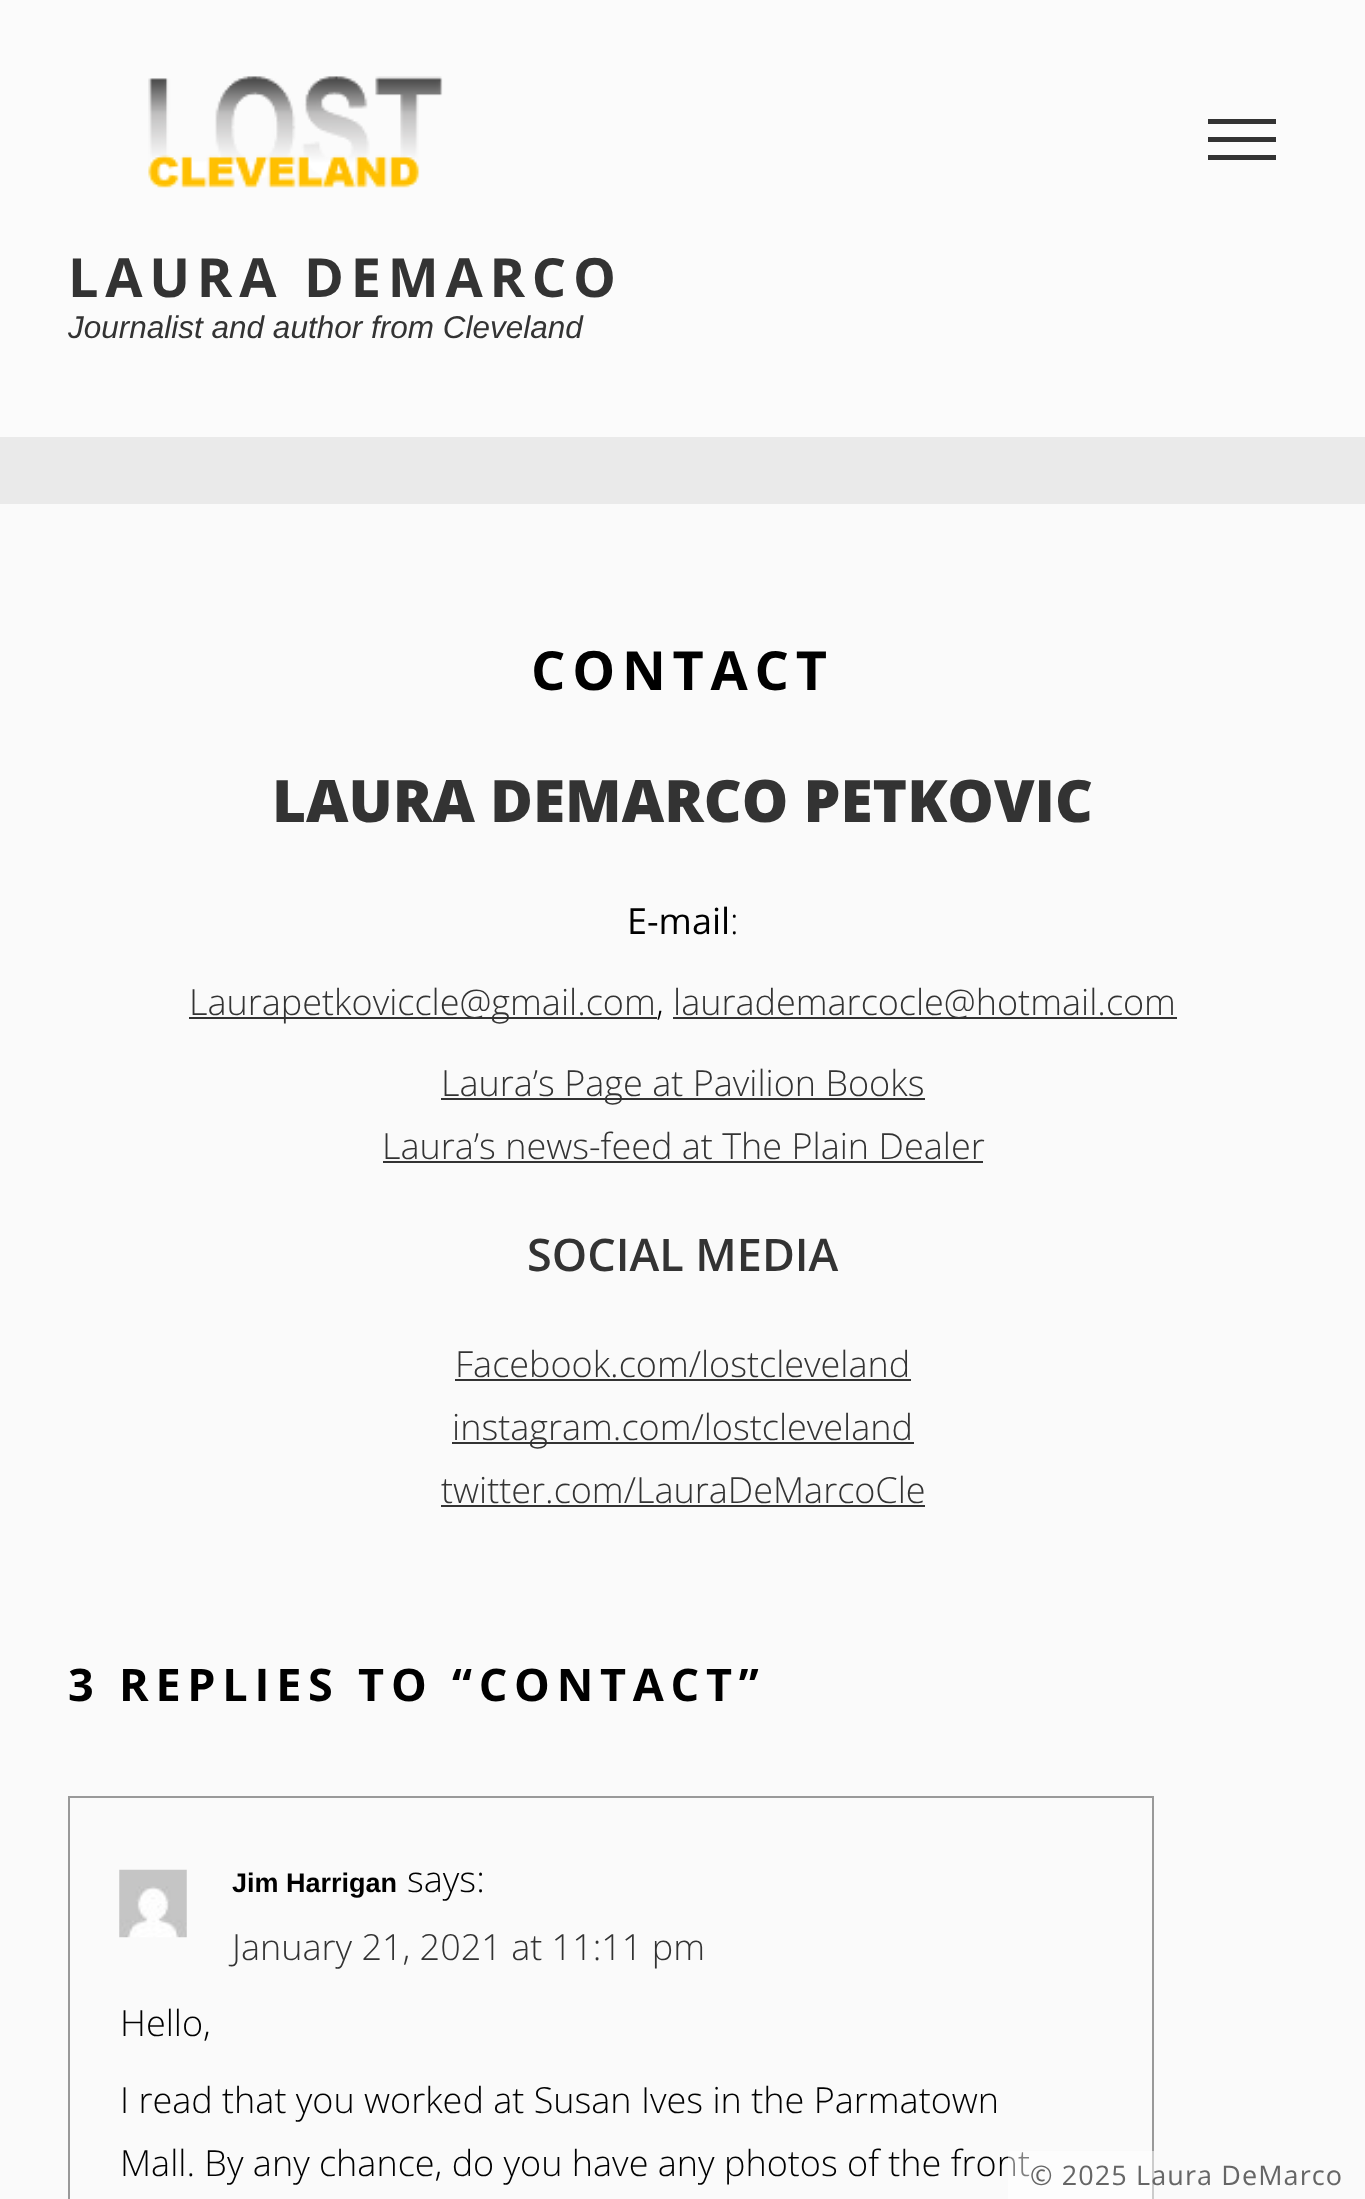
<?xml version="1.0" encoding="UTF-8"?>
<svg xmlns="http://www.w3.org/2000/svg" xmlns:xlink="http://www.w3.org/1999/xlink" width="1365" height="2199">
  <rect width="100%" height="100%" fill="#eaeaea" />
  <rect width="1365" height="437" fill="#fbfbfb" />
  <rect x="1208" y="119" width="68" height="5" fill="#333333" />
  <rect x="1208" y="137" width="68" height="5" fill="#333333" />
  <rect x="1208" y="155" width="68" height="5" fill="#333333" />
  <image x="148" y="76" width="295" height="112" xlink:href="image1.png" />
  <rect y="504" width="1365" height="1695" fill="#fafafa" />
  <rect x="189" y="1017" width="468" height="2" fill="#333333" />
  <rect x="673" y="1017" width="504" height="2" fill="#333333" />
  <rect x="441" y="1098" width="484" height="2" fill="#333333" />
  <rect x="383" y="1161" width="600" height="2" fill="#333333" />
  <rect x="455" y="1379" width="456" height="2" fill="#333333" />
  <rect x="452" y="1442" width="462" height="2" fill="#333333" />
  <rect x="441" y="1505" width="484" height="2" fill="#333333" />
  <rect x="69" y="1797" width="1084" height="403" fill="none" stroke="#999999" stroke-width="2" />
  <image x="119" y="1869" width="68" height="69" xlink:href="image2.png" />
  <text x="68" y="297" style="font-family: Open Sans; font-size: 54px; font-weight: bold; letter-spacing: 6.75px; fill: #333333">LAURA DEMARCO</text>
  <text x="68" y="338" style="font-family: Liberation Sans; font-size: 31.5px; font-style: italic; fill: #333333">Journalist and author from Cleveland</text>
  <text x="531" y="690" style="font-family: Open Sans; font-size: 54px; font-weight: bold; letter-spacing: 6.75px; fill: #000000">CONTACT</text>
  <text x="272" y="822" style="font-family: Open Sans; font-size: 58.5px; font-weight: 800; fill: #333333">LAURA DEMARCO PETKOVIC</text>
  <text x="627" y="934" style="font-family: Open Sans; font-size: 36px; fill: #000000">E-mail</text>
  <text x="730" y="934" style="font-family: Open Sans; font-size: 36px; font-weight: 300; fill: #000000">:</text>
  <text x="189" y="1015" style="font-family: Open Sans; font-size: 36px; font-weight: 300; fill: #333333">Laurapetkoviccle@gmail.com</text>
  <text x="656" y="1015" style="font-family: Open Sans; font-size: 36px; font-weight: 300; fill: #000000">,</text>
  <text x="673" y="1015" style="font-family: Open Sans; font-size: 36px; font-weight: 300; fill: #333333">laurademarcocle@hotmail.com</text>
  <text x="441" y="1096" style="font-family: Open Sans; font-size: 36px; font-weight: 300; fill: #333333">Laura’s Page at Pavilion Books</text>
  <text x="382" y="1159" style="font-family: Open Sans; font-size: 36px; font-weight: 300; fill: #333333">Laura’s news-feed at The Plain Dealer</text>
  <text x="527" y="1271" style="font-family: Open Sans; font-size: 45px; font-weight: 600; fill: #333333">SOCIAL MEDIA</text>
  <text x="455" y="1377" style="font-family: Open Sans; font-size: 36px; font-weight: 300; fill: #333333">Facebook.com/lostcleveland</text>
  <text x="452" y="1440" style="font-family: Open Sans; font-size: 36px; font-weight: 300; fill: #333333">instagram.com/lostcleveland</text>
  <text x="441" y="1503" style="font-family: Open Sans; font-size: 36px; font-weight: 300; fill: #333333">twitter.com/LauraDeMarcoCle</text>
  <text x="68" y="1701" style="font-family: Open Sans; font-size: 45px; font-weight: bold; letter-spacing: 6.75px; fill: #000000">3 REPLIES TO “CONTACT”</text>
  <text x="232" y="1892" style="font-family: Liberation Sans; font-size: 27px; font-weight: bold; fill: #000000">Jim Harrigan</text>
  <text x="407" y="1892" style="font-family: Open Sans; font-size: 36px; font-weight: 300; fill: #000000">says:</text>
  <text x="232" y="1960" style="font-family: Open Sans; font-size: 36px; font-weight: 300; fill: #333333">January 21, 2021 at 11:11 pm</text>
  <text x="120" y="2036" style="font-family: Open Sans; font-size: 36px; font-weight: 300; fill: #000000">Hello,</text>
  <text x="120" y="2113" style="font-family: Open Sans; font-size: 36px; font-weight: 300; fill: #000000">I read that you worked at Susan Ives in the Parmatown</text>
  <text x="120" y="2176" style="font-family: Open Sans; font-size: 36px; font-weight: 300; fill: #000000">Mall. By any chance, do you have any photos of the front</text>
  <rect x="1008" y="2151" width="146" height="48" fill="#ffffff" fill-opacity="0.5" />
  <text x="1030" y="2185" style="font-family: Open Sans; font-size: 27px; letter-spacing: 1.1px; fill: #666666">© 2025 Laura DeMarco</text>
</svg>
